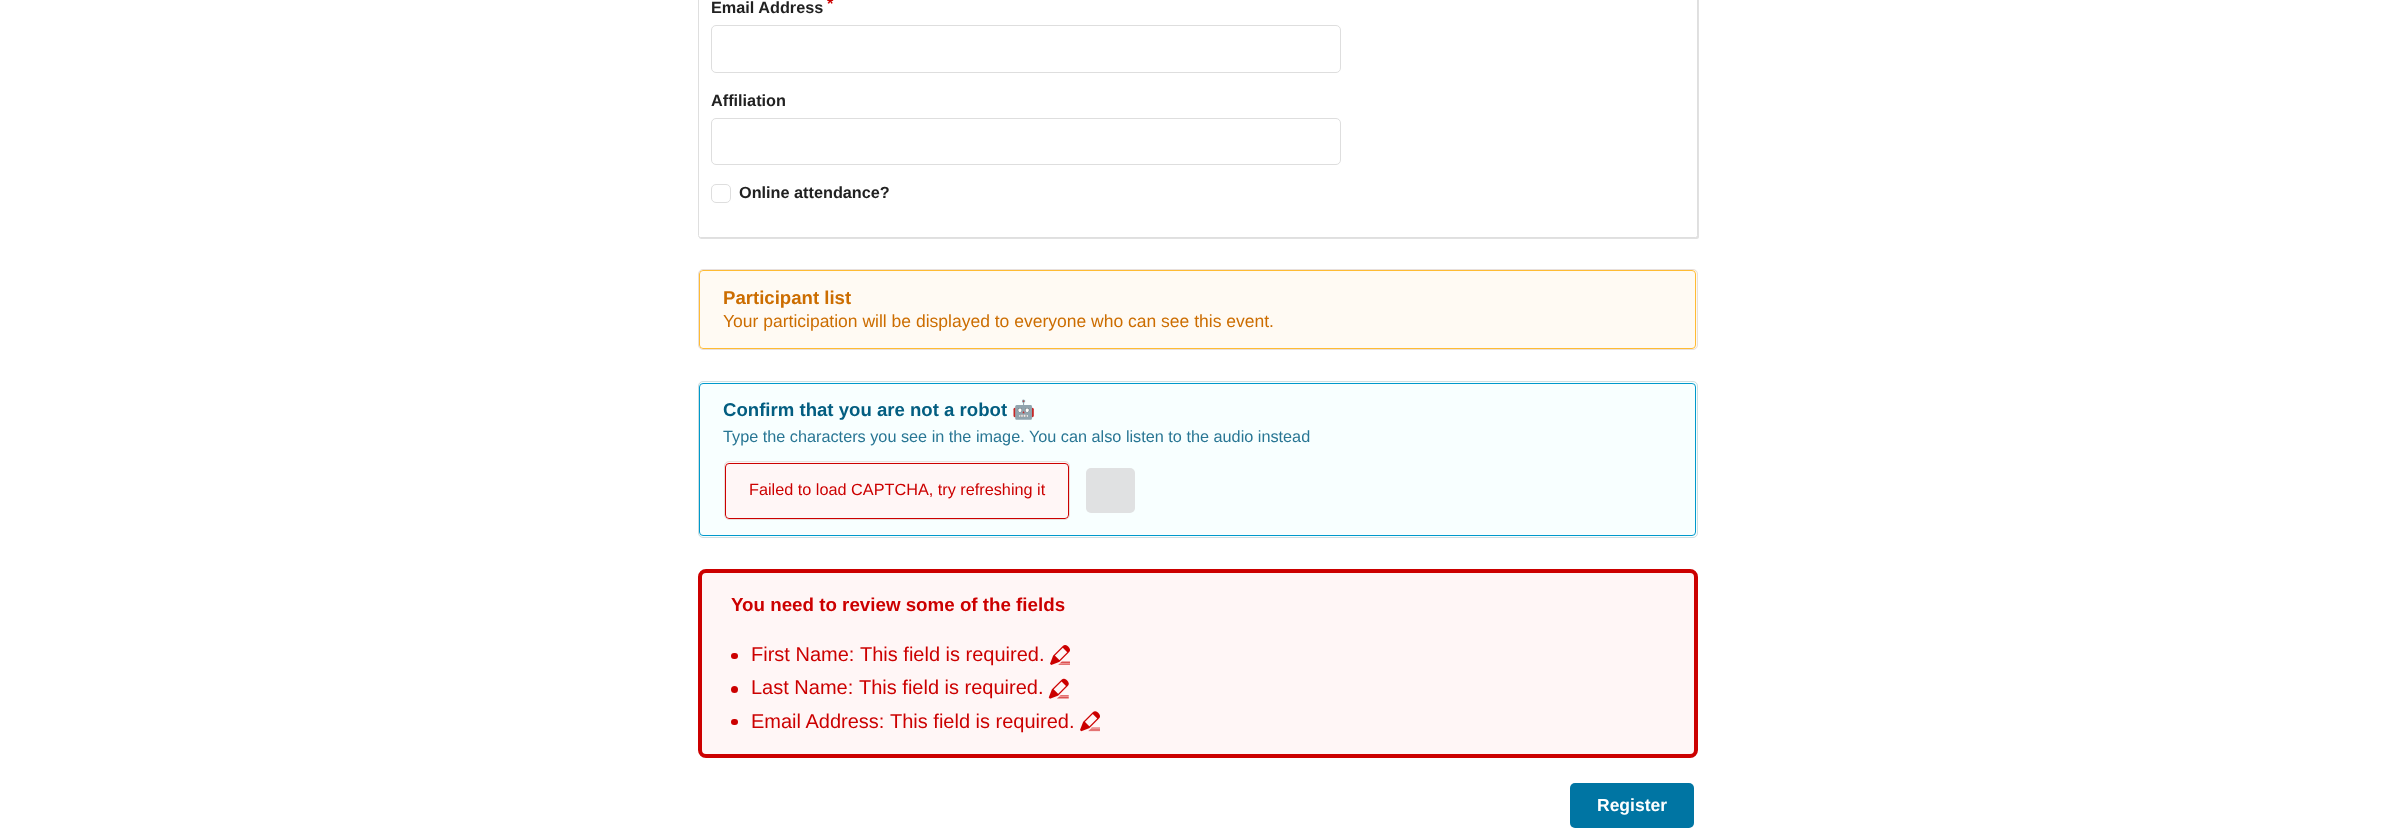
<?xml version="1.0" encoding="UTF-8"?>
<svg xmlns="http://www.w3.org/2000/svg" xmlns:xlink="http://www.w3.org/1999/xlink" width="2395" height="838">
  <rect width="100%" height="100%" fill="#ffffff" />
  <rect x="699" y="-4" width="1000" height="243" rx="2.5" fill="#e1e1e1" filter="blur(0.5px)" />
  <rect x="698.5" y="-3.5" width="999" height="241" rx="2" fill="#ffffff" stroke="#dfdfdf" />
  <rect x="711.5" y="25.5" width="629" height="47" rx="4.5" fill="none" stroke="#dedede" />
  <rect x="711.5" y="118.5" width="629" height="46" rx="4.5" fill="none" stroke="#dedede" />
  <rect x="711.5" y="184.5" width="19" height="18" rx="4.5" fill="none" stroke="#dedede" />
  <rect x="698" y="269" width="1000" height="81" rx="5" fill="#fffaf3" />
  <rect x="699.5" y="270.5" width="996" height="78" rx="3.5" fill="none" stroke="#ffbb33" />
  <rect x="698.5" y="269.5" width="999" height="80" rx="4.5" fill="none" stroke="#e7e0dd" />
  <rect x="698" y="381" width="1000" height="157" rx="5" fill="#f8ffff" />
  <rect x="699.5" y="383.5" width="996" height="152" rx="3.5" fill="none" stroke="#0099cc" />
  <rect x="698.5" y="381.5" width="999" height="156" rx="4.5" fill="none" stroke="#cfdee0" />
  <rect x="724" y="461" width="346" height="59" rx="5" fill="#fff6f6" />
  <rect x="725.5" y="463.5" width="343" height="55" rx="3.5" fill="none" stroke="#cc0000" />
  <rect x="724.5" y="461.5" width="345" height="58" rx="4.5" fill="none" stroke="#e7e0dd" />
  <rect x="1086" y="468" width="49" height="45" rx="5" fill="#e0e1e2" />
  <rect x="700" y="571" width="996" height="185" rx="6" fill="#fff6f6" stroke="#cc0000" stroke-width="4" />
  <rect x="731" y="653" width="7" height="6" rx="3" fill="#cc0000" />
  <image x="1050" y="645" width="20" height="20" xlink:href="image1.png" />
  <circle cx="734.5" cy="689.5" r="3.5" fill="#cc0000" />
  <image x="1048" y="678" width="21" height="21" xlink:href="image2.png" />
  <rect x="731" y="719" width="7" height="6" rx="3" fill="#cc0000" />
  <image x="1080" y="711" width="20" height="21" xlink:href="image3.png" />
  <rect x="1570" y="783" width="124" height="45" rx="5" fill="#0075a3" />
  <text x="711" y="13" style="font-family: Liberation Sans; font-size: 16.25px; font-weight: bold; fill: #212121">Email Address</text>
  <text x="827" y="9" style="font-family: Liberation Sans; font-size: 16.25px; font-weight: bold; fill: #cc0000">*</text>
  <text x="711" y="106" style="font-family: Liberation Sans; font-size: 16.25px; font-weight: bold; fill: #212121">Affiliation</text>
  <text x="739" y="198" style="font-family: Liberation Sans; font-size: 16.25px; font-weight: bold; fill: #212121">Online attendance?</text>
  <text x="723" y="304" style="font-family: Liberation Sans; font-size: 18.6px; font-weight: bold; fill: #cc6d00">Participant list</text>
  <text x="723" y="327" style="font-family: Liberation Sans; font-size: 17.5px; fill: #cc6d00">Your participation will be displayed to everyone who can see this event.</text>
  <text x="723" y="416" style="font-family: Liberation Sans; font-size: 18.6px; font-weight: bold; fill: #035e81">Confirm that you are not a robot</text>
  <text x="1012" y="416" style="font-family: Noto Color Emoji; font-size: 18.6px; font-weight: bold; fill: #035e81">🤖</text>
  <text x="723" y="442" style="font-family: Liberation Sans; font-size: 16.25px; fill: #287694">Type the characters you see in the image. You can also listen to the audio instead</text>
  <text x="749" y="495" style="font-family: Liberation Sans; font-size: 16.25px; fill: #cc0000">Failed to load CAPTCHA, try refreshing it</text>
  <text x="731" y="611" style="font-family: Liberation Sans; font-size: 18.75px; font-weight: bold; fill: #cc0000">You need to review some of the fields</text>
  <text x="751" y="661" style="font-family: Liberation Sans; font-size: 20px; fill: #cc0000">First Name:</text>
  <text x="860" y="661" style="font-family: Liberation Sans; font-size: 20px; fill: #cc0000">This field is required.</text>
  <text x="751" y="694" style="font-family: Liberation Sans; font-size: 20px; fill: #cc0000">Last Name:</text>
  <text x="859" y="694" style="font-family: Liberation Sans; font-size: 20px; fill: #cc0000">This field is required.</text>
  <text x="751" y="728" style="font-family: Liberation Sans; font-size: 20px; fill: #cc0000">Email Address:</text>
  <text x="890" y="728" style="font-family: Liberation Sans; font-size: 20px; fill: #cc0000">This field is required.</text>
  <text x="1597" y="811" style="font-family: Liberation Sans; font-size: 17.5px; font-weight: bold; fill: #ffffff">Register</text>
</svg>
